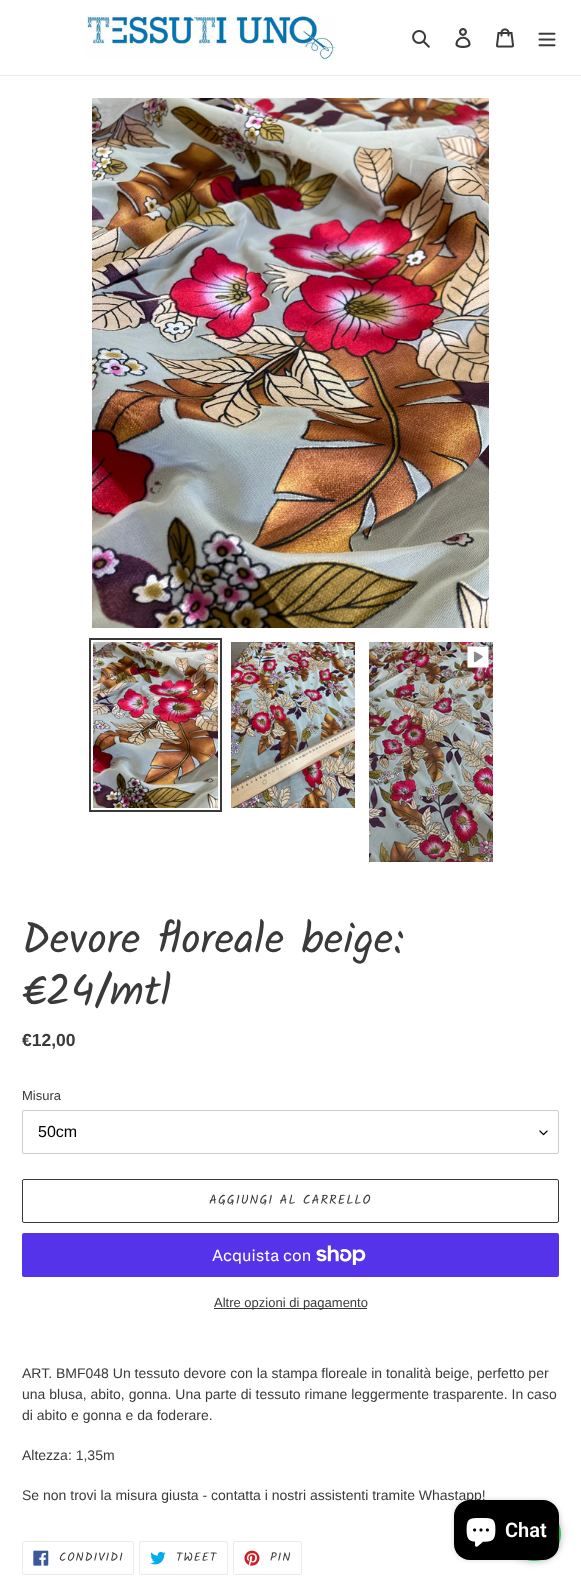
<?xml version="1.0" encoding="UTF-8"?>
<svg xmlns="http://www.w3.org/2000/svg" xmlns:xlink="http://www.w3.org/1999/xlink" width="581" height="1581">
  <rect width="100%" height="100%" fill="#ffffff" />
  <rect y="75" width="581" height="1" fill="#ebebeb" />
  <image x="86" y="15" width="250" height="45" xlink:href="image1.png" />
  <image x="412" y="30" width="18" height="18" xlink:href="image2.png" />
  <image x="455" y="28" width="16" height="20" xlink:href="image3.png" />
  <image x="496" y="28" width="18" height="20" xlink:href="image4.png" />
  <image x="538" y="32" width="18" height="15" xlink:href="image5.png" />
  <image x="92" y="98" width="397" height="530" xlink:href="image6.png" />
  <rect x="90" y="639" width="131" height="172" fill="none" stroke="#3a3a3a" stroke-width="2" />
  <image x="93" y="642" width="125" height="166" xlink:href="image7.png" />
  <image x="231" y="642" width="124" height="166" xlink:href="image8.png" />
  <image x="369" y="642" width="124" height="220" xlink:href="image9.png" />
  <image x="467" y="646" width="22" height="22" xlink:href="image10.png" />
  <image x="539" y="1130" width="9" height="6" xlink:href="image11.png" />
  <rect x="22.5" y="1110.5" width="536" height="43" rx="1.5" fill="none" stroke="#cccccc" />
  <rect x="22.5" y="1179.5" width="536" height="43" rx="1.5" fill="none" stroke="#3a3a3a" />
  <rect x="22" y="1233" width="537" height="44" rx="2" fill="#5433eb" />
  <image x="316" y="1245" width="50" height="20" xlink:href="image12.png" />
  <rect x="214" y="1308" width="153" height="1" fill="#3a3a3a" />
  <rect x="22.5" y="1541.5" width="111" height="33" rx="1.5" fill="none" stroke="#ebebeb" />
  <image x="33" y="1550" width="16" height="16" xlink:href="image13.png" />
  <rect x="139.5" y="1541.5" width="88" height="33" rx="1.5" fill="none" stroke="#ebebeb" />
  <image x="150" y="1551" width="16" height="14" xlink:href="image14.png" />
  <rect x="233.5" y="1541.5" width="68" height="33" rx="1.5" fill="none" stroke="#ebebeb" />
  <image x="244" y="1550" width="16" height="16" xlink:href="image15.png" />
  <rect x="507" y="1507" width="54" height="54" rx="27" fill="#c2c2c2" filter="blur(4px)" />
  <circle cx="534" cy="1534" r="27" fill="#22ce5a" />
  <rect x="454" y="1500" width="105" height="60" rx="16" fill="#000000" fill-opacity="0.15" filter="blur(2.5px)" />
  <text x="22" y="953" style="font-family: Kalam; font-size: 43px; fill: #3a3a3a">Devore floreale beige:</text>
  <text x="22" y="1005" style="font-family: Kalam; font-size: 43px; fill: #3a3a3a">€24/mtl</text>
  <text x="22" y="1046" style="font-family: Liberation Sans; font-size: 17.5px; font-weight: bold; fill: #3a3a3a">€12,00</text>
  <text x="22" y="1100" style="font-family: Liberation Sans; font-size: 13px; fill: #3a3a3a">Misura</text>
  <text x="38" y="1137" style="font-family: Liberation Sans; font-size: 16px; fill: #000000">50cm</text>
  <text x="209" y="1204" style="font-family: Kalam; font-size: 13px; letter-spacing: 1px; fill: #3a3a3a">AGGIUNGI AL CARRELLO</text>
  <text x="212" y="1261" style="font-family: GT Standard; font-size: 16px; fill: #ffffff">Acquista con</text>
  <text x="214" y="1307" style="font-family: Liberation Sans; font-size: 13px; fill: #3a3a3a">Altre opzioni di pagamento</text>
  <text x="22" y="1378" style="font-family: Liberation Sans; font-size: 14px; fill: #3a3a3a">ART. BMF048 Un tessuto devore con la stampa floreale in tonalità beige, perfetto per</text>
  <text x="22" y="1399" style="font-family: Liberation Sans; font-size: 14px; fill: #3a3a3a">una blusa, abito, gonna. Una parte di tessuto rimane leggermente trasparente. In caso</text>
  <text x="22" y="1420" style="font-family: Liberation Sans; font-size: 14px; fill: #3a3a3a">di abito e gonna e da foderare.</text>
  <text x="22" y="1460" style="font-family: Liberation Sans; font-size: 14px; fill: #3a3a3a">Altezza: 1,35m</text>
  <text x="22" y="1500" style="font-family: Liberation Sans; font-size: 14px; fill: #3a3a3a">Se non trovi la misura giusta - contatta i nostri assistenti tramite Whastapp!</text>
  <text x="59" y="1561" style="font-family: Kalam; font-size: 12px; letter-spacing: 1px; fill: #3a3a3a">CONDIVIDI</text>
  <text x="176" y="1561" style="font-family: Kalam; font-size: 12px; letter-spacing: 1px; fill: #3a3a3a">TWEET</text>
  <text x="270" y="1561" style="font-family: Kalam; font-size: 12px; letter-spacing: 1px; fill: #3a3a3a">PIN</text>
  <rect x="454" y="1500" width="105" height="60" rx="16" fill="#000000" />
  <image x="466" y="1518" width="30" height="29" xlink:href="image16.png" />
  <text x="505" y="1537" style="font-family: Roboto; font-size: 20px; font-weight: 600; fill: #ffffff">Chat</text>
</svg>
